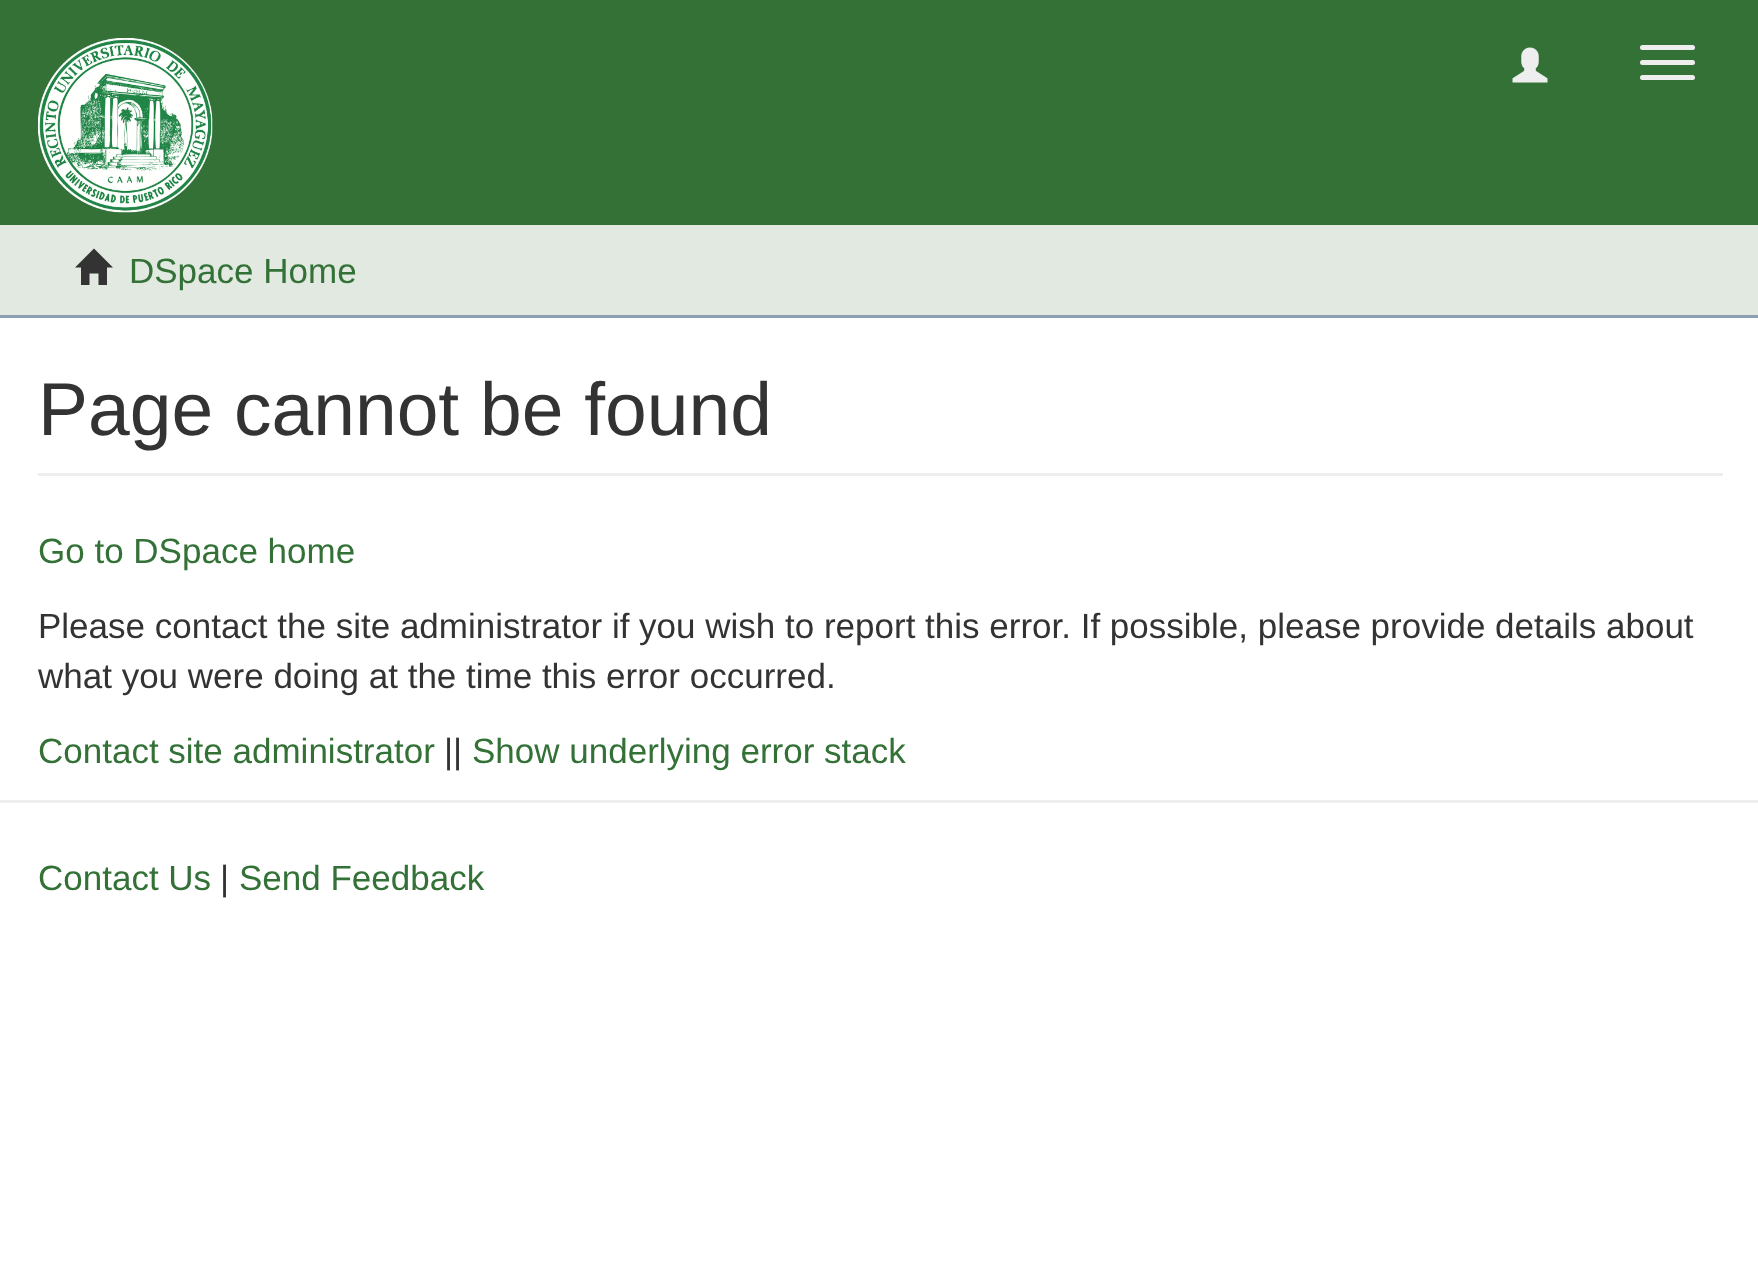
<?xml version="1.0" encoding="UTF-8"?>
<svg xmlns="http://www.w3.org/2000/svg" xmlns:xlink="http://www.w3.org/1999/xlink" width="1758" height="1276">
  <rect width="100%" height="100%" fill="#ffffff" />
  <rect width="1758" height="225" fill="#337137" />
  <image x="38" y="38" width="175" height="175" xlink:href="image1.png" />
  <image x="1512" y="47" width="36" height="36" xlink:href="image2.png" />
  <rect x="1640" y="45" width="55" height="5" rx="2.5" fill="#eeeeee" />
  <rect x="1640" y="60" width="55" height="5" rx="2.5" fill="#eeeeee" />
  <rect x="1640" y="75" width="55" height="5" rx="2.5" fill="#eeeeee" />
  <rect y="225" width="1758" height="90" fill="#e1e9e1" />
  <rect y="315" width="1758" height="3" fill="#8b9eb2" />
  <path d="M 75 267.5 l 19 -19 l 19 19 h -6 v 17.5 h -8.5 v -11.5 h -9 v 11.5 h -8.5 v -17.5 z" fill="#333333" />
  <rect x="38" y="473" width="1685" height="3" fill="#eeeeee" />
  <rect y="800" width="1758" height="3" fill="#eeeeee" />
  <text x="129" y="283" style="font-family: Liberation Sans; font-size: 35px; fill: #337137">DSpace Home</text>
  <text x="38" y="435" style="font-family: Liberation Sans; font-size: 75px; fill: #333333">Page cannot be found</text>
  <text x="38" y="563" style="font-family: Liberation Sans; font-size: 35px; fill: #337137">Go to DSpace home</text>
  <text x="38" y="638" style="font-family: Liberation Sans; font-size: 35px; fill: #333333">Please contact the site administrator if you wish to report this error. If possible, please provide details about</text>
  <text x="38" y="688" style="font-family: Liberation Sans; font-size: 35px; fill: #333333">what you were doing at the time this error occurred.</text>
  <text x="38" y="763" style="font-family: Liberation Sans; font-size: 35px; fill: #337137">Contact site administrator</text>
  <text x="444" y="763" style="font-family: Liberation Sans; font-size: 35px; fill: #333333">||</text>
  <text x="472" y="763" style="font-family: Liberation Sans; font-size: 35px; fill: #337137">Show underlying error stack</text>
  <text x="38" y="890" style="font-family: Liberation Sans; font-size: 35px; fill: #337137">Contact Us</text>
  <text x="220" y="890" style="font-family: Liberation Sans; font-size: 35px; fill: #333333">|</text>
  <text x="239" y="890" style="font-family: Liberation Sans; font-size: 35px; fill: #337137">Send Feedback</text>
</svg>
